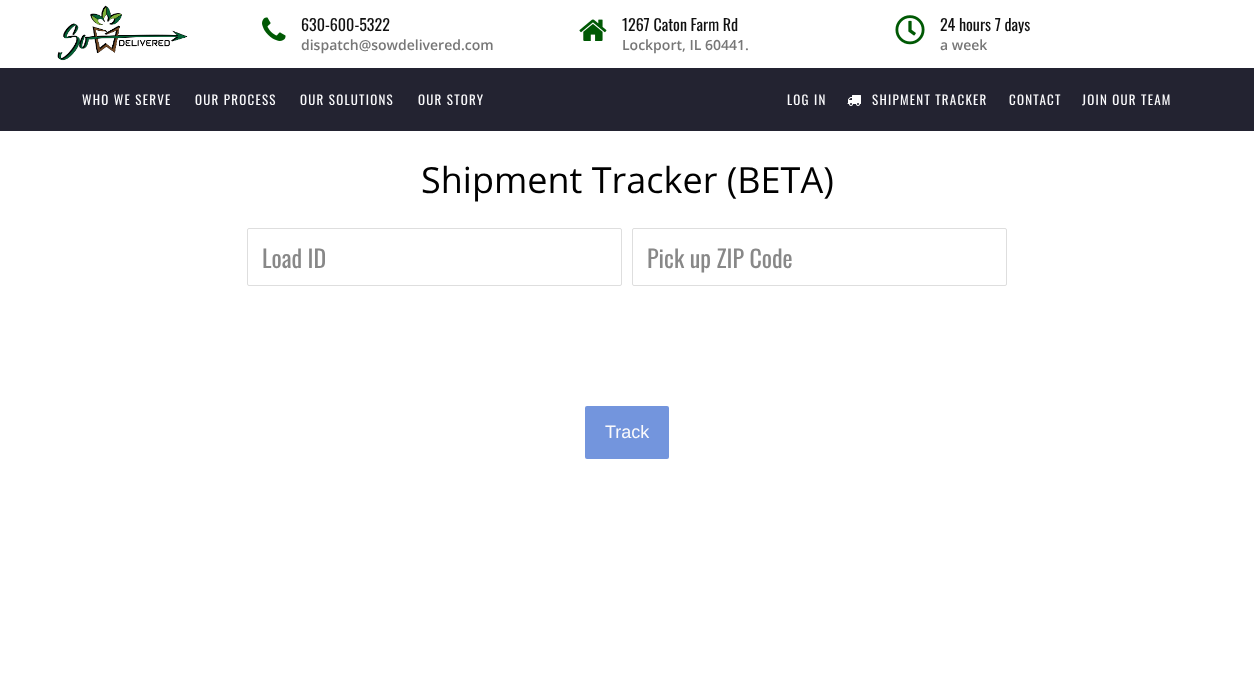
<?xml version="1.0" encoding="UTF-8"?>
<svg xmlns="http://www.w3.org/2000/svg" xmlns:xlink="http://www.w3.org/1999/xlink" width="1254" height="675">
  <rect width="100%" height="100%" fill="#ffffff" />
  <image x="57" y="5" width="131" height="56" xlink:href="image1.png" />
  <image x="262" y="17" width="24" height="24" xlink:href="image2.png" />
  <image x="579" y="19" width="28" height="22" xlink:href="image3.png" />
  <image x="895" y="15" width="30" height="30" xlink:href="image4.png" />
  <rect y="68" width="1254" height="63" fill="#232331" />
  <image x="847" y="95" width="14" height="11" xlink:href="image5.png" />
  <rect x="247.5" y="228.5" width="374" height="57" rx="1.5" fill="none" stroke="#dedede" />
  <rect x="632.5" y="228.5" width="374" height="57" rx="1.5" fill="none" stroke="#dedede" />
  <rect x="585" y="406" width="84" height="53" rx="2" fill="#7395dd" />
  <text x="301" y="31" style="font-family: Oswald; font-size: 16px; fill: #111111">630-600-5322</text>
  <text x="301" y="50" style="font-family: Open Sans; font-size: 14px; font-weight: 600; fill: #777777">dispatch@sowdelivered.com</text>
  <text x="622" y="31" style="font-family: Oswald; font-size: 16px; fill: #111111">1267 Caton Farm Rd</text>
  <text x="622" y="50" style="font-family: Open Sans; font-size: 14px; font-weight: 600; fill: #777777">Lockport, IL 60441.</text>
  <text x="940" y="31" style="font-family: Oswald; font-size: 16px; fill: #111111">24 hours 7 days</text>
  <text x="940" y="50" style="font-family: Open Sans; font-size: 14px; font-weight: 600; fill: #777777">a week</text>
  <text x="82" y="105" style="font-family: Oswald; font-size: 13px; letter-spacing: 1.25px; fill: #fafafc">WHO WE SERVE</text>
  <text x="195" y="105" style="font-family: Oswald; font-size: 13px; letter-spacing: 1.25px; fill: #fafafc">OUR PROCESS</text>
  <text x="300" y="105" style="font-family: Oswald; font-size: 13px; letter-spacing: 1.25px; fill: #fafafc">OUR SOLUTIONS</text>
  <text x="418" y="105" style="font-family: Oswald; font-size: 13px; letter-spacing: 1.25px; fill: #fafafc">OUR STORY</text>
  <text x="787" y="105" style="font-family: Oswald; font-size: 13px; letter-spacing: 1.25px; fill: #fafafc">LOG IN</text>
  <text x="872" y="105" style="font-family: Oswald; font-size: 13px; letter-spacing: 1.25px; fill: #fafafc">SHIPMENT TRACKER</text>
  <text x="1009" y="105" style="font-family: Oswald; font-size: 13px; letter-spacing: 1.25px; fill: #fafafc">CONTACT</text>
  <text x="1082" y="105" style="font-family: Oswald; font-size: 13px; letter-spacing: 1.25px; fill: #fafafc">JOIN OUR TEAM</text>
  <text x="421" y="193" style="font-family: Open Sans; font-size: 36px; fill: #000000">Shipment Tracker (BETA)</text>
  <text x="262" y="268" style="font-family: Oswald; font-size: 24px; fill: #888888">Load ID</text>
  <text x="647" y="268" style="font-family: Oswald; font-size: 24px; fill: #888888">Pick up ZIP Code</text>
  <text x="605" y="438" style="font-family: Liberation Sans; font-size: 18px; fill: #fafafc">Track</text>
</svg>
